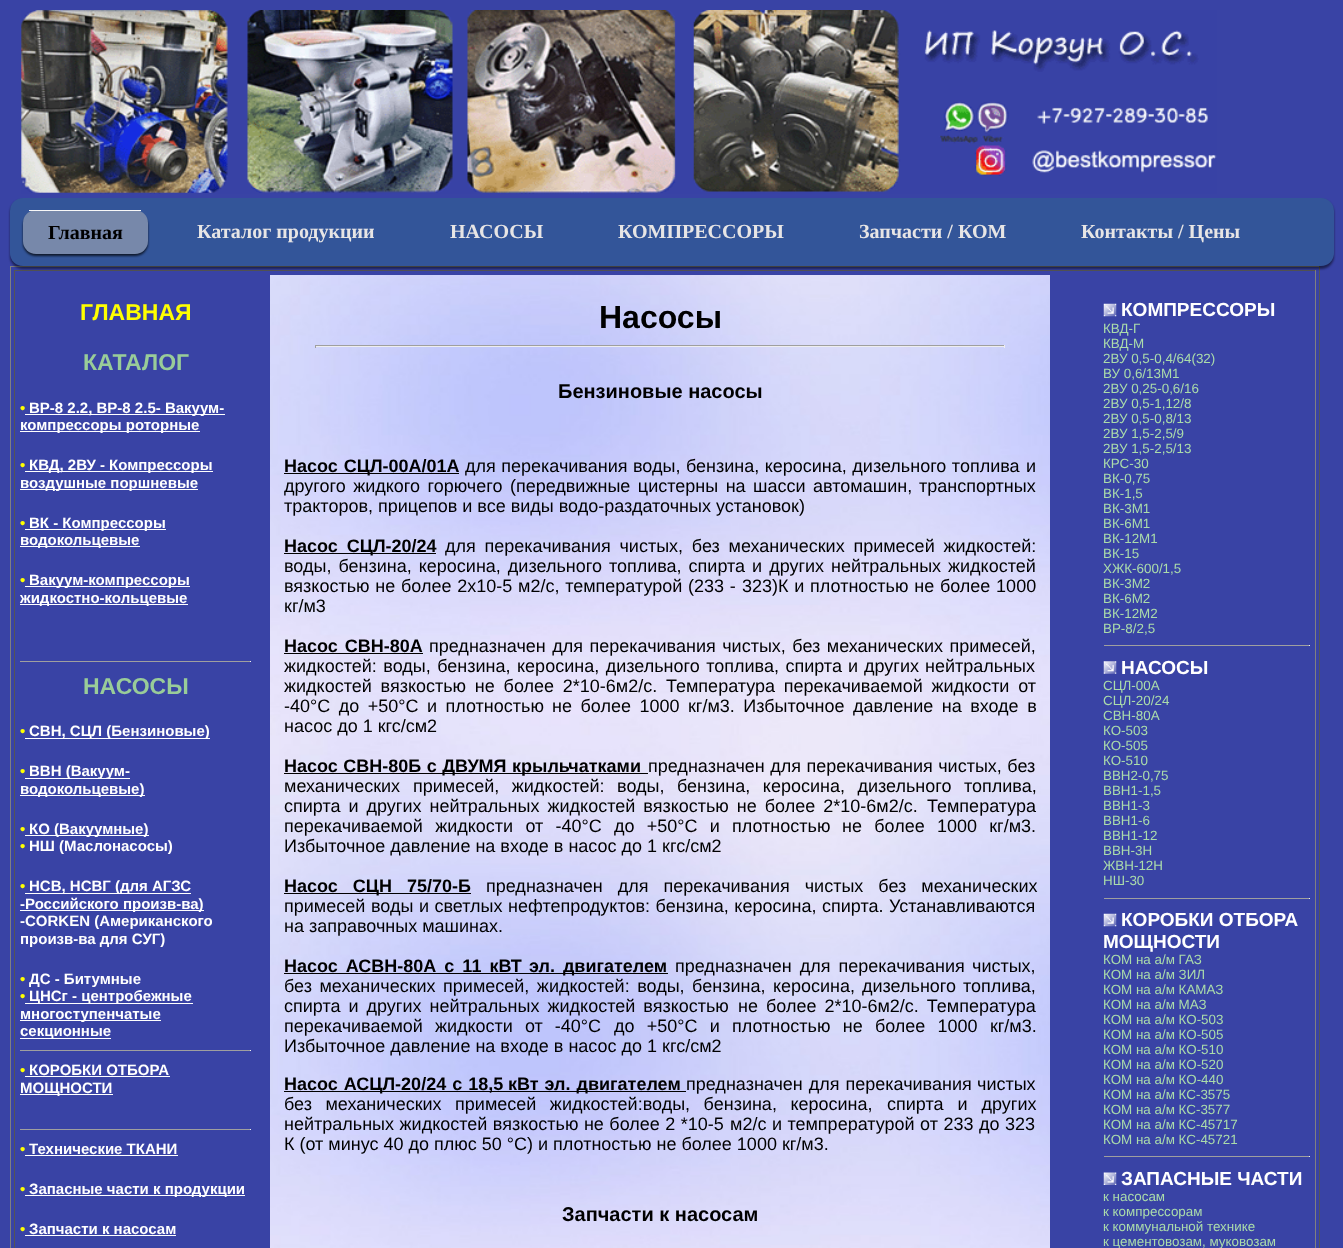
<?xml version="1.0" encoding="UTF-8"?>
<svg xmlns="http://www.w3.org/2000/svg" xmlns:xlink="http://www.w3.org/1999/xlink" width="1343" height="1248">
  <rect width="100%" height="100%" fill="#3943a5" />
  <image x="21" y="10" width="1196" height="184" xlink:href="image1.png" />
  <rect x="10" y="266" width="1310" height="1" fill="#808080" />
  <rect x="1319" y="266" width="1" height="982" fill="#555555" />
  <rect x="10" y="266" width="1" height="982" fill="#808080" />
  <rect x="14" y="270" width="1302" height="1" fill="#555555" />
  <rect x="1315" y="270" width="1" height="978" fill="#808080" />
  <rect x="14" y="270" width="1" height="978" fill="#555555" />
  <rect x="10" y="200" width="1324" height="69" rx="13" fill="#000000" fill-opacity="0.5" filter="blur(1px)" />
  <rect x="10" y="198" width="1324" height="68" rx="13" fill="#335599" />
  <rect x="23" y="213" width="125" height="43" rx="13" fill="#000000" fill-opacity="0.7" filter="blur(1px)" />
  <rect x="23" y="210" width="125" height="44" rx="13" fill="#7788aa" />
  <rect x="29" y="210" width="112" height="1" fill="#f8f8f8" />
  <rect x="25" y="414" width="200" height="1" fill="#ffffff" />
  <rect x="20" y="431" width="180" height="1" fill="#ffffff" />
  <rect x="25" y="471" width="188" height="1" fill="#ffffff" />
  <rect x="20" y="489" width="178" height="1" fill="#ffffff" />
  <rect x="25" y="529" width="141" height="1" fill="#ffffff" />
  <rect x="20" y="546" width="120" height="1" fill="#ffffff" />
  <rect x="25" y="586" width="165" height="1" fill="#ffffff" />
  <rect x="20" y="604" width="168" height="1" fill="#ffffff" />
  <rect x="20" y="661" width="231" height="1" fill="#9f9f9f" />
  <rect x="250" y="661" width="1" height="1" fill="#eeeeee" />
  <rect x="25" y="738" width="185" height="1" fill="#ffffff" />
  <rect x="25" y="778" width="105" height="1" fill="#ffffff" />
  <rect x="20" y="795" width="125" height="1" fill="#ffffff" />
  <rect x="25" y="835" width="124" height="1" fill="#ffffff" />
  <rect x="25" y="893" width="166" height="1" fill="#ffffff" />
  <rect x="20" y="910" width="184" height="1" fill="#ffffff" />
  <rect x="25" y="1003" width="168" height="1" fill="#ffffff" />
  <rect x="20" y="1020" width="141" height="1" fill="#ffffff" />
  <rect x="20" y="1038" width="91" height="1" fill="#ffffff" />
  <rect x="20" y="1050" width="231" height="1" fill="#9f9f9f" />
  <rect x="250" y="1050" width="1" height="1" fill="#eeeeee" />
  <rect x="25" y="1076" width="145" height="1" fill="#ffffff" />
  <rect x="20" y="1094" width="93" height="1" fill="#ffffff" />
  <rect x="20" y="1129" width="231" height="1" fill="#9f9f9f" />
  <rect x="250" y="1129" width="1" height="1" fill="#eeeeee" />
  <rect x="25" y="1155" width="153" height="1" fill="#ffffff" />
  <rect x="25" y="1195" width="220" height="1" fill="#ffffff" />
  <rect x="25" y="1235" width="151" height="1" fill="#ffffff" />
  <image x="270" y="275" width="780" height="973" xlink:href="image2.png" />
  <rect x="315" y="345" width="690" height="1" fill="#9f9f9f" />
  <rect x="1004" y="345" width="1" height="3" fill="#eeeeee" />
  <rect x="315" y="346" width="690" height="1" fill="#eeeeee" />
  <rect x="315" y="345" width="1" height="3" fill="#9f9f9f" />
  <rect x="284" y="473" width="175" height="1" fill="#000000" />
  <rect x="284" y="553" width="152" height="1" fill="#000000" />
  <rect x="284" y="653" width="139" height="1" fill="#000000" />
  <rect x="284" y="773" width="364" height="1" fill="#000000" />
  <rect x="284" y="893" width="187" height="1" fill="#000000" />
  <rect x="284" y="973" width="384" height="1" fill="#000000" />
  <rect x="284" y="1091" width="402" height="1" fill="#000000" />
  <image x="1103" y="303" width="14" height="14" xlink:href="image3.png" />
  <rect x="1104" y="645" width="206" height="1" fill="#9f9f9f" />
  <rect x="1309" y="645" width="1" height="1" fill="#eeeeee" />
  <image x="1103" y="661" width="14" height="13" xlink:href="image4.png" />
  <rect x="1104" y="898" width="206" height="1" fill="#9f9f9f" />
  <rect x="1309" y="898" width="1" height="1" fill="#eeeeee" />
  <image x="1103" y="913" width="14" height="14" xlink:href="image3.png" />
  <rect x="1104" y="1156" width="206" height="1" fill="#9f9f9f" />
  <rect x="1309" y="1156" width="1" height="1" fill="#eeeeee" />
  <image x="1103" y="1172" width="14" height="13" xlink:href="image5.png" />
  <text x="48" y="239" style="font-family: Liberation Serif; font-size: 20px; font-weight: bold; fill: #000000">Главная</text>
  <text x="197" y="238" style="font-family: Liberation Serif; font-size: 20px; font-weight: bold; fill: #e7e5e5">Каталог продукции</text>
  <text x="450" y="238" style="font-family: Liberation Serif; font-size: 20px; font-weight: bold; fill: #e7e5e5">НАСОСЫ</text>
  <text x="618" y="238" style="font-family: Liberation Serif; font-size: 20px; font-weight: bold; fill: #e7e5e5">КОМПРЕССОРЫ</text>
  <text x="859" y="238" style="font-family: Liberation Serif; font-size: 20px; font-weight: bold; fill: #e7e5e5">Запчасти / КОМ</text>
  <text x="1081" y="238" style="font-family: Liberation Serif; font-size: 20px; font-weight: bold; fill: #e7e5e5">Контакты / Цены</text>
  <text x="80" y="320" style="font-family: Liberation Sans; font-size: 23px; font-weight: bold; fill: #ffff00">ГЛАВНАЯ</text>
  <text x="83" y="370" style="font-family: Liberation Sans; font-size: 23px; font-weight: bold; fill: #99cc99">КАТАЛОГ</text>
  <text x="20" y="413" style="font-family: Liberation Sans; font-size: 15px; font-weight: bold; fill: #ffff00">•</text>
  <text x="29" y="413" style="font-family: Liberation Sans; font-size: 15px; font-weight: bold; fill: #ffffff">ВР-8 2.2, ВР-8 2.5- Вакуум-</text>
  <text x="20" y="430" style="font-family: Liberation Sans; font-size: 15px; font-weight: bold; fill: #ffffff">компрессоры роторные</text>
  <text x="20" y="470" style="font-family: Liberation Sans; font-size: 15px; font-weight: bold; fill: #ffff00">•</text>
  <text x="29" y="470" style="font-family: Liberation Sans; font-size: 15px; font-weight: bold; fill: #ffffff">КВД, 2ВУ - Компрессоры</text>
  <text x="20" y="488" style="font-family: Liberation Sans; font-size: 15px; font-weight: bold; fill: #ffffff">воздушные поршневые</text>
  <text x="20" y="528" style="font-family: Liberation Sans; font-size: 15px; font-weight: bold; fill: #ffff00">•</text>
  <text x="29" y="528" style="font-family: Liberation Sans; font-size: 15px; font-weight: bold; fill: #ffffff">ВК - Компрессоры</text>
  <text x="20" y="545" style="font-family: Liberation Sans; font-size: 15px; font-weight: bold; fill: #ffffff">водокольцевые</text>
  <text x="20" y="585" style="font-family: Liberation Sans; font-size: 15px; font-weight: bold; fill: #ffff00">•</text>
  <text x="29" y="585" style="font-family: Liberation Sans; font-size: 15px; font-weight: bold; fill: #ffffff">Вакуум-компрессоры</text>
  <text x="20" y="603" style="font-family: Liberation Sans; font-size: 15px; font-weight: bold; fill: #ffffff">жидкостно-кольцевые</text>
  <text x="83" y="694" style="font-family: Liberation Sans; font-size: 23px; font-weight: bold; fill: #99cc99">НАСОСЫ</text>
  <text x="20" y="736" style="font-family: Liberation Sans; font-size: 15px; font-weight: bold; fill: #ffff00">•</text>
  <text x="29" y="736" style="font-family: Liberation Sans; font-size: 15px; font-weight: bold; fill: #ffffff">СВН, СЦЛ (Бензиновые)</text>
  <text x="20" y="776" style="font-family: Liberation Sans; font-size: 15px; font-weight: bold; fill: #ffff00">•</text>
  <text x="29" y="776" style="font-family: Liberation Sans; font-size: 15px; font-weight: bold; fill: #ffffff">ВВН (Вакуум-</text>
  <text x="20" y="794" style="font-family: Liberation Sans; font-size: 15px; font-weight: bold; fill: #ffffff">водокольцевые)</text>
  <text x="20" y="834" style="font-family: Liberation Sans; font-size: 15px; font-weight: bold; fill: #ffff00">•</text>
  <text x="29" y="834" style="font-family: Liberation Sans; font-size: 15px; font-weight: bold; fill: #ffffff">КО (Вакуумные)</text>
  <text x="20" y="851" style="font-family: Liberation Sans; font-size: 15px; font-weight: bold; fill: #ffff00">•</text>
  <text x="29" y="851" style="font-family: Liberation Sans; font-size: 15px; font-weight: bold; fill: #ffffff">НШ (Маслонасосы)</text>
  <text x="20" y="891" style="font-family: Liberation Sans; font-size: 15px; font-weight: bold; fill: #ffff00">•</text>
  <text x="29" y="891" style="font-family: Liberation Sans; font-size: 15px; font-weight: bold; fill: #ffffff">НСВ, НСВГ (для АГЗС</text>
  <text x="20" y="909" style="font-family: Liberation Sans; font-size: 15px; font-weight: bold; fill: #ffffff">-Российского произв-ва)</text>
  <text x="20" y="926" style="font-family: Liberation Sans; font-size: 15px; font-weight: bold; fill: #ffffff">-CORKEN (Американского</text>
  <text x="20" y="944" style="font-family: Liberation Sans; font-size: 15px; font-weight: bold; fill: #ffffff">произв-ва для СУГ)</text>
  <text x="20" y="984" style="font-family: Liberation Sans; font-size: 15px; font-weight: bold; fill: #ffff00">•</text>
  <text x="29" y="984" style="font-family: Liberation Sans; font-size: 15px; font-weight: bold; fill: #ffffff">ДС - Битумные</text>
  <text x="20" y="1001" style="font-family: Liberation Sans; font-size: 15px; font-weight: bold; fill: #ffff00">•</text>
  <text x="29" y="1001" style="font-family: Liberation Sans; font-size: 15px; font-weight: bold; fill: #ffffff">ЦНСг - центробежные</text>
  <text x="20" y="1019" style="font-family: Liberation Sans; font-size: 15px; font-weight: bold; fill: #ffffff">многоступенчатые</text>
  <text x="20" y="1036" style="font-family: Liberation Sans; font-size: 15px; font-weight: bold; fill: #ffffff">секционные</text>
  <text x="20" y="1075" style="font-family: Liberation Sans; font-size: 15px; font-weight: bold; fill: #ffff00">•</text>
  <text x="29" y="1075" style="font-family: Liberation Sans; font-size: 15px; font-weight: bold; fill: #ffffff">КОРОБКИ ОТБОРА</text>
  <text x="20" y="1093" style="font-family: Liberation Sans; font-size: 15px; font-weight: bold; fill: #ffffff">МОЩНОСТИ</text>
  <text x="20" y="1154" style="font-family: Liberation Sans; font-size: 15px; font-weight: bold; fill: #ffff00">•</text>
  <text x="29" y="1154" style="font-family: Liberation Sans; font-size: 15px; font-weight: bold; fill: #ffffff">Технические ТКАНИ</text>
  <text x="20" y="1194" style="font-family: Liberation Sans; font-size: 15px; font-weight: bold; fill: #ffff00">•</text>
  <text x="29" y="1194" style="font-family: Liberation Sans; font-size: 15px; font-weight: bold; fill: #ffffff">Запасные части к продукции</text>
  <text x="20" y="1234" style="font-family: Liberation Sans; font-size: 15px; font-weight: bold; fill: #ffff00">•</text>
  <text x="29" y="1234" style="font-family: Liberation Sans; font-size: 15px; font-weight: bold; fill: #ffffff">Запчасти к насосам</text>
  <text x="599" y="328" style="font-family: Liberation Sans; font-size: 32px; font-weight: bold; fill: #000000">Насосы</text>
  <text x="558" y="398" style="font-family: Liberation Sans; font-size: 20px; font-weight: bold; fill: #000000">Бензиновые насосы</text>
  <text x="284" y="472" word-spacing="1" style="font-family: Liberation Sans; font-size: 18px; font-weight: bold; fill: #000000">Насос СЦЛ-00А/01А</text>
  <text x="465" y="472" word-spacing="0.5" style="font-family: Liberation Sans; font-size: 18px; fill: #000000">для перекачивания воды, бензина, керосина, дизельного топлива</text>
  <text x="1026" y="472" style="font-family: Liberation Sans; font-size: 18px; fill: #000000">и</text>
  <text x="284" y="492" word-spacing="2.5" style="font-family: Liberation Sans; font-size: 18px; fill: #000000">другого жидкого горючего (передвижные цистерны на шасси автомашин,</text>
  <text x="919" y="492" style="font-family: Liberation Sans; font-size: 18px; fill: #000000">транспортных</text>
  <text x="284" y="512" style="font-family: Liberation Sans; font-size: 18px; fill: #000000">тракторов, прицепов и все виды водо-раздаточных установок)</text>
  <text x="284" y="552" word-spacing="4" style="font-family: Liberation Sans; font-size: 18px; font-weight: bold; fill: #000000">Насос СЦЛ-20/24</text>
  <text x="445" y="552" word-spacing="3.75" style="font-family: Liberation Sans; font-size: 18px; fill: #000000">для перекачивания чистых, без механических примесей жидкостей:</text>
  <text x="284" y="572" word-spacing="2" style="font-family: Liberation Sans; font-size: 18px; fill: #000000">воды, бензина, керосина, дизельного топлива, спирта и других нейтральных</text>
  <text x="948" y="572" style="font-family: Liberation Sans; font-size: 18px; fill: #000000">жидкостей</text>
  <text x="284" y="592" word-spacing="0.75" style="font-family: Liberation Sans; font-size: 18px; fill: #000000">вязкостью не более 2х10-5 м2/с, температурой (233 -</text>
  <text x="742" y="592" word-spacing="0.75" style="font-family: Liberation Sans; font-size: 18px; fill: #000000">323)К и плотностью не более 1000</text>
  <text x="284" y="612" style="font-family: Liberation Sans; font-size: 18px; fill: #000000">кг/м3</text>
  <text x="284" y="652" word-spacing="2" style="font-family: Liberation Sans; font-size: 18px; font-weight: bold; fill: #000000">Насос СВН-80А</text>
  <text x="429" y="652" word-spacing="1.5" style="font-family: Liberation Sans; font-size: 18px; fill: #000000">предназначен для перекачивания чистых, без механических примесей,</text>
  <text x="284" y="672" word-spacing="1.5" style="font-family: Liberation Sans; font-size: 18px; fill: #000000">жидкостей: воды, бензина, керосина, дизельного топлива, спирта</text>
  <text x="848" y="672" word-spacing="1" style="font-family: Liberation Sans; font-size: 18px; fill: #000000">и других нейтральных</text>
  <text x="284" y="692" word-spacing="3.75" style="font-family: Liberation Sans; font-size: 18px; fill: #000000">жидкостей вязкостью не более 2*10-6м2/с.</text>
  <text x="666" y="692" word-spacing="3.75" style="font-family: Liberation Sans; font-size: 18px; fill: #000000">Температура перекачиваемой жидкости от</text>
  <text x="284" y="712" word-spacing="3.5" style="font-family: Liberation Sans; font-size: 18px; fill: #000000">-40°С до +50°С и плотностью</text>
  <text x="552" y="712" word-spacing="3.5" style="font-family: Liberation Sans; font-size: 18px; fill: #000000">не более 1000 кг/м3. Избыточное давление на входе в</text>
  <text x="284" y="732" style="font-family: Liberation Sans; font-size: 18px; fill: #000000">насос до 1 кгс/см2</text>
  <text x="284" y="772" word-spacing="0.5" style="font-family: Liberation Sans; font-size: 18px; font-weight: bold; fill: #000000">Насос СВН-80Б с ДВУМЯ крыльчатками</text>
  <text x="648" y="772" word-spacing="0.5" style="font-family: Liberation Sans; font-size: 18px; fill: #000000">предназначен для перекачивания чистых, без</text>
  <text x="284" y="792" style="font-family: Liberation Sans; font-size: 18px; fill: #000000">механических</text>
  <text x="413" y="792" word-spacing="7.5" style="font-family: Liberation Sans; font-size: 18px; fill: #000000">примесей, жидкостей: воды, бензина, керосина, дизельного топлива,</text>
  <text x="284" y="812" word-spacing="3" style="font-family: Liberation Sans; font-size: 18px; fill: #000000">спирта и других нейтральных жидкостей вязкостью не более 2*10-6м2/с.</text>
  <text x="927" y="812" style="font-family: Liberation Sans; font-size: 18px; fill: #000000">Температура</text>
  <text x="284" y="832" word-spacing="7.25" style="font-family: Liberation Sans; font-size: 18px; fill: #000000">перекачиваемой жидкости от -40°С до +50°С и плотностью</text>
  <text x="842" y="832" word-spacing="7.25" style="font-family: Liberation Sans; font-size: 18px; fill: #000000">не более 1000 кг/м3.</text>
  <text x="284" y="852" style="font-family: Liberation Sans; font-size: 18px; fill: #000000">Избыточное давление на входе в насос до 1 кгс/см2</text>
  <text x="284" y="892" word-spacing="10" style="font-family: Liberation Sans; font-size: 18px; font-weight: bold; fill: #000000">Насос СЦН 75/70-Б</text>
  <text x="486" y="892" word-spacing="10" style="font-family: Liberation Sans; font-size: 18px; fill: #000000">предназначен для перекачивания чистых без механических</text>
  <text x="284" y="912" style="font-family: Liberation Sans; font-size: 18px; fill: #000000">примесей</text>
  <text x="371" y="912" word-spacing="0.5" style="font-family: Liberation Sans; font-size: 18px; fill: #000000">воды и светлых нефтепродуктов: бензина, керосина, спирта. Устанавливаются</text>
  <text x="284" y="932" style="font-family: Liberation Sans; font-size: 18px; fill: #000000">на заправочных машинах.</text>
  <text x="284" y="972" word-spacing="3" style="font-family: Liberation Sans; font-size: 18px; font-weight: bold; fill: #000000">Насос АСВН-80А с 11 кВТ</text>
  <text x="529" y="972" word-spacing="3" style="font-family: Liberation Sans; font-size: 18px; font-weight: bold; fill: #000000">эл. двигателем</text>
  <text x="675" y="972" word-spacing="3" style="font-family: Liberation Sans; font-size: 18px; fill: #000000">предназначен для перекачивания</text>
  <text x="972" y="972" style="font-family: Liberation Sans; font-size: 18px; fill: #000000">чистых,</text>
  <text x="284" y="992" word-spacing="2.5" style="font-family: Liberation Sans; font-size: 18px; fill: #000000">без механических примесей, жидкостей: воды, бензина, керосина,</text>
  <text x="862" y="992" word-spacing="2" style="font-family: Liberation Sans; font-size: 18px; fill: #000000">дизельного топлива,</text>
  <text x="284" y="1012" word-spacing="3" style="font-family: Liberation Sans; font-size: 18px; fill: #000000">спирта и других нейтральных жидкостей вязкостью</text>
  <text x="738" y="1012" word-spacing="3" style="font-family: Liberation Sans; font-size: 18px; fill: #000000">не более 2*10-6м2/с. Температура</text>
  <text x="284" y="1032" word-spacing="7" style="font-family: Liberation Sans; font-size: 18px; fill: #000000">перекачиваемой жидкости от -40°С</text>
  <text x="614" y="1032" word-spacing="7.25" style="font-family: Liberation Sans; font-size: 18px; fill: #000000">до +50°С и плотностью не более 1000 кг/м3.</text>
  <text x="284" y="1052" style="font-family: Liberation Sans; font-size: 18px; fill: #000000">Избыточное давление на входе в насос до 1 кгс/см2</text>
  <text x="284" y="1090" word-spacing="1" style="font-family: Liberation Sans; font-size: 18px; font-weight: bold; fill: #000000">Насос АСЦЛ-20/24 с 18,5</text>
  <text x="508" y="1090" word-spacing="1" style="font-family: Liberation Sans; font-size: 18px; font-weight: bold; fill: #000000">кВт эл. двигателем</text>
  <text x="686" y="1090" word-spacing="1" style="font-family: Liberation Sans; font-size: 18px; fill: #000000">предназначен для перекачивания</text>
  <text x="977" y="1090" style="font-family: Liberation Sans; font-size: 18px; fill: #000000">чистых</text>
  <text x="284" y="1110" word-spacing="8.5" style="font-family: Liberation Sans; font-size: 18px; fill: #000000">без механических примесей жидкостей:воды, бензина, керосина,</text>
  <text x="887" y="1110" word-spacing="9" style="font-family: Liberation Sans; font-size: 18px; fill: #000000">спирта и других</text>
  <text x="284" y="1130" word-spacing="0.5" style="font-family: Liberation Sans; font-size: 18px; fill: #000000">нейтральных жидкостей вязкостью не более 2 *10-5</text>
  <text x="730" y="1130" word-spacing="0.5" style="font-family: Liberation Sans; font-size: 18px; fill: #000000">м2/с и темпрературой от 233 до 323</text>
  <text x="284" y="1150" style="font-family: Liberation Sans; font-size: 18px; fill: #000000">К (от минус 40 до плюс 50 °С) и плотностью не более 1000 кг/м3.</text>
  <text x="562" y="1221" style="font-family: Liberation Sans; font-size: 20px; font-weight: bold; fill: #000000">Запчасти к насосам</text>
  <text x="1121" y="316" style="font-family: Liberation Sans; font-size: 19px; font-weight: bold; fill: #ffffff">КОМПРЕССОРЫ</text>
  <text x="1103" y="333" style="font-family: Liberation Sans; font-size: 13.4px; fill: #abdcab">КВД-Г</text>
  <text x="1103" y="348" style="font-family: Liberation Sans; font-size: 13.4px; fill: #abdcab">КВД-М</text>
  <text x="1103" y="363" style="font-family: Liberation Sans; font-size: 13.4px; fill: #abdcab">2ВУ 0,5-0,4/64(32)</text>
  <text x="1103" y="378" style="font-family: Liberation Sans; font-size: 13.4px; fill: #abdcab">ВУ 0,6/13М1</text>
  <text x="1103" y="393" style="font-family: Liberation Sans; font-size: 13.4px; fill: #abdcab">2ВУ 0,25-0,6/16</text>
  <text x="1103" y="408" style="font-family: Liberation Sans; font-size: 13.4px; fill: #abdcab">2ВУ 0,5-1,12/8</text>
  <text x="1103" y="423" style="font-family: Liberation Sans; font-size: 13.4px; fill: #abdcab">2ВУ 0,5-0,8/13</text>
  <text x="1103" y="438" style="font-family: Liberation Sans; font-size: 13.4px; fill: #abdcab">2ВУ 1,5-2,5/9</text>
  <text x="1103" y="453" style="font-family: Liberation Sans; font-size: 13.4px; fill: #abdcab">2ВУ 1,5-2,5/13</text>
  <text x="1103" y="468" style="font-family: Liberation Sans; font-size: 13.4px; fill: #abdcab">КРС-30</text>
  <text x="1103" y="483" style="font-family: Liberation Sans; font-size: 13.4px; fill: #abdcab">ВК-0,75</text>
  <text x="1103" y="498" style="font-family: Liberation Sans; font-size: 13.4px; fill: #abdcab">ВК-1,5</text>
  <text x="1103" y="513" style="font-family: Liberation Sans; font-size: 13.4px; fill: #abdcab">ВК-3М1</text>
  <text x="1103" y="528" style="font-family: Liberation Sans; font-size: 13.4px; fill: #abdcab">ВК-6М1</text>
  <text x="1103" y="543" style="font-family: Liberation Sans; font-size: 13.4px; fill: #abdcab">ВК-12М1</text>
  <text x="1103" y="558" style="font-family: Liberation Sans; font-size: 13.4px; fill: #abdcab">ВК-15</text>
  <text x="1103" y="573" style="font-family: Liberation Sans; font-size: 13.4px; fill: #abdcab">ХЖК-600/1,5</text>
  <text x="1103" y="588" style="font-family: Liberation Sans; font-size: 13.4px; fill: #abdcab">ВК-3М2</text>
  <text x="1103" y="603" style="font-family: Liberation Sans; font-size: 13.4px; fill: #abdcab">ВК-6М2</text>
  <text x="1103" y="618" style="font-family: Liberation Sans; font-size: 13.4px; fill: #abdcab">ВК-12М2</text>
  <text x="1103" y="633" style="font-family: Liberation Sans; font-size: 13.4px; fill: #abdcab">ВР-8/2,5</text>
  <text x="1121" y="674" style="font-family: Liberation Sans; font-size: 19px; font-weight: bold; fill: #ffffff">НАСОСЫ</text>
  <text x="1103" y="690" style="font-family: Liberation Sans; font-size: 13.4px; fill: #abdcab">СЦЛ-00А</text>
  <text x="1103" y="705" style="font-family: Liberation Sans; font-size: 13.4px; fill: #abdcab">СЦЛ-20/24</text>
  <text x="1103" y="720" style="font-family: Liberation Sans; font-size: 13.4px; fill: #abdcab">СВН-80А</text>
  <text x="1103" y="735" style="font-family: Liberation Sans; font-size: 13.4px; fill: #abdcab">КО-503</text>
  <text x="1103" y="750" style="font-family: Liberation Sans; font-size: 13.4px; fill: #abdcab">КО-505</text>
  <text x="1103" y="765" style="font-family: Liberation Sans; font-size: 13.4px; fill: #abdcab">КО-510</text>
  <text x="1103" y="780" style="font-family: Liberation Sans; font-size: 13.4px; fill: #abdcab">ВВН2-0,75</text>
  <text x="1103" y="795" style="font-family: Liberation Sans; font-size: 13.4px; fill: #abdcab">ВВН1-1,5</text>
  <text x="1103" y="810" style="font-family: Liberation Sans; font-size: 13.4px; fill: #abdcab">ВВН1-3</text>
  <text x="1103" y="825" style="font-family: Liberation Sans; font-size: 13.4px; fill: #abdcab">ВВН1-6</text>
  <text x="1103" y="840" style="font-family: Liberation Sans; font-size: 13.4px; fill: #abdcab">ВВН1-12</text>
  <text x="1103" y="855" style="font-family: Liberation Sans; font-size: 13.4px; fill: #abdcab">ВВН-3Н</text>
  <text x="1103" y="870" style="font-family: Liberation Sans; font-size: 13.4px; fill: #abdcab">ЖВН-12Н</text>
  <text x="1103" y="885" style="font-family: Liberation Sans; font-size: 13.4px; fill: #abdcab">НШ-30</text>
  <text x="1121" y="926" style="font-family: Liberation Sans; font-size: 19px; font-weight: bold; fill: #ffffff">КОРОБКИ ОТБОРА</text>
  <text x="1103" y="948" style="font-family: Liberation Sans; font-size: 19px; font-weight: bold; fill: #ffffff">МОЩНОСТИ</text>
  <text x="1103" y="964" style="font-family: Liberation Sans; font-size: 13.4px; fill: #abdcab">КОМ на а/м ГАЗ</text>
  <text x="1103" y="979" style="font-family: Liberation Sans; font-size: 13.4px; fill: #abdcab">КОМ на а/м ЗИЛ</text>
  <text x="1103" y="994" style="font-family: Liberation Sans; font-size: 13.4px; fill: #abdcab">КОМ на а/м КАМАЗ</text>
  <text x="1103" y="1009" style="font-family: Liberation Sans; font-size: 13.4px; fill: #abdcab">КОМ на а/м МАЗ</text>
  <text x="1103" y="1024" style="font-family: Liberation Sans; font-size: 13.4px; fill: #abdcab">КОМ на а/м КО-503</text>
  <text x="1103" y="1039" style="font-family: Liberation Sans; font-size: 13.4px; fill: #abdcab">КОМ на а/м КО-505</text>
  <text x="1103" y="1054" style="font-family: Liberation Sans; font-size: 13.4px; fill: #abdcab">КОМ на а/м КО-510</text>
  <text x="1103" y="1069" style="font-family: Liberation Sans; font-size: 13.4px; fill: #abdcab">КОМ на а/м КО-520</text>
  <text x="1103" y="1084" style="font-family: Liberation Sans; font-size: 13.4px; fill: #abdcab">КОМ на а/м КО-440</text>
  <text x="1103" y="1099" style="font-family: Liberation Sans; font-size: 13.4px; fill: #abdcab">КОМ на а/м КС-3575</text>
  <text x="1103" y="1114" style="font-family: Liberation Sans; font-size: 13.4px; fill: #abdcab">КОМ на а/м КС-3577</text>
  <text x="1103" y="1129" style="font-family: Liberation Sans; font-size: 13.4px; fill: #abdcab">КОМ на а/м КС-45717</text>
  <text x="1103" y="1144" style="font-family: Liberation Sans; font-size: 13.4px; fill: #abdcab">КОМ на а/м КС-45721</text>
  <text x="1121" y="1185" style="font-family: Liberation Sans; font-size: 19px; font-weight: bold; fill: #ffffff">ЗАПАСНЫЕ ЧАСТИ</text>
  <text x="1103" y="1201" style="font-family: Liberation Sans; font-size: 13.4px; fill: #abdcab">к насосам</text>
  <text x="1103" y="1216" style="font-family: Liberation Sans; font-size: 13.4px; fill: #abdcab">к компрессорам</text>
  <text x="1103" y="1231" style="font-family: Liberation Sans; font-size: 13.4px; fill: #abdcab">к коммунальной технике</text>
  <text x="1103" y="1246" style="font-family: Liberation Sans; font-size: 13.4px; fill: #abdcab">к цементовозам, муковозам</text>
</svg>
